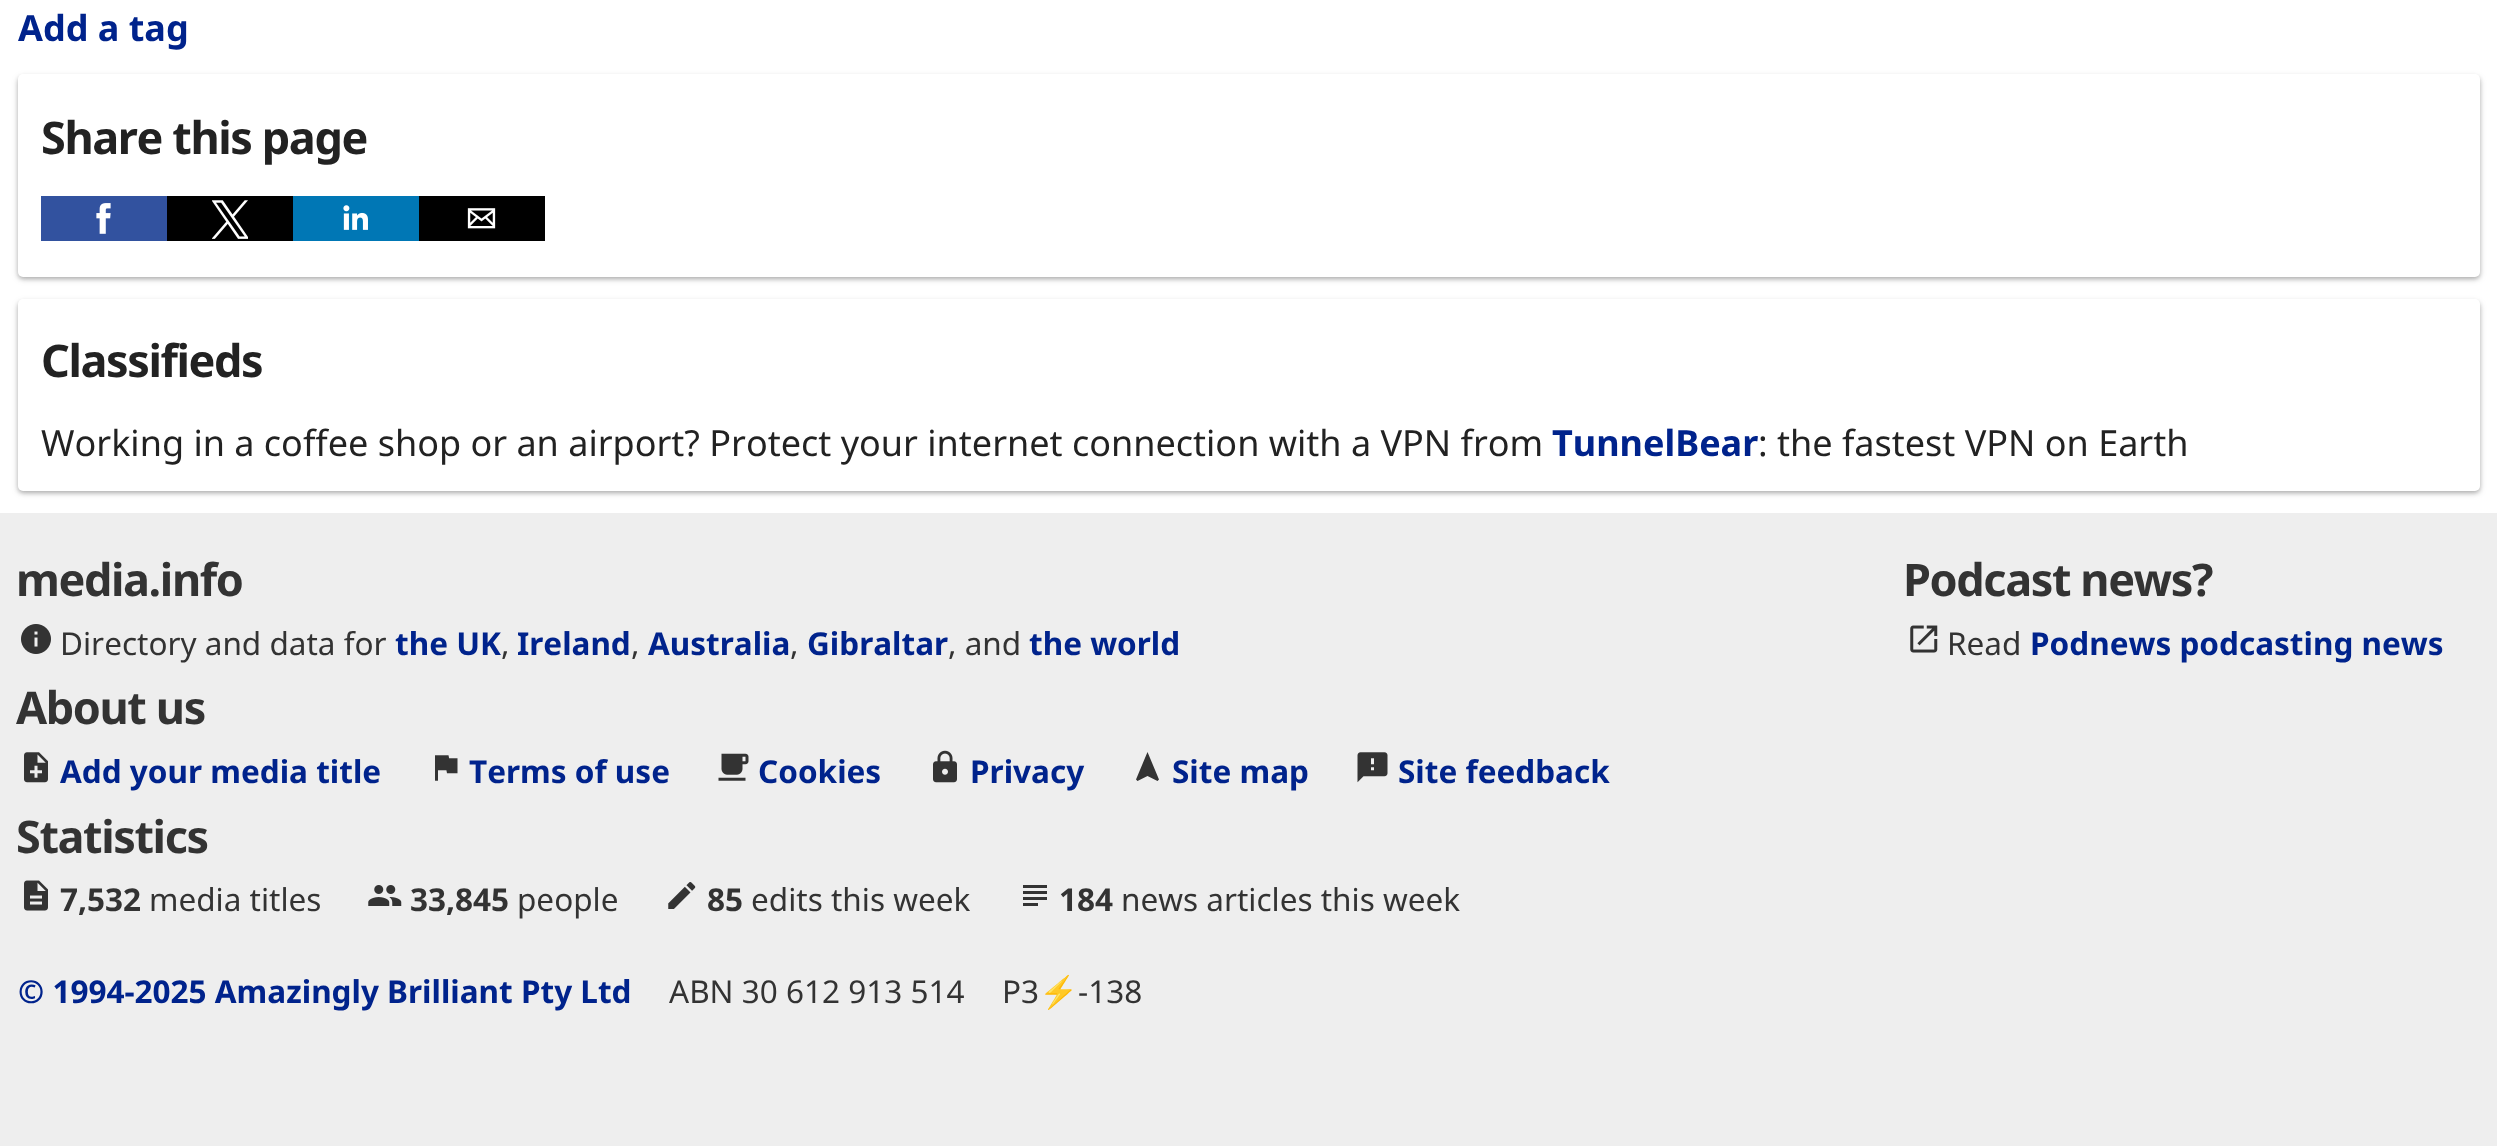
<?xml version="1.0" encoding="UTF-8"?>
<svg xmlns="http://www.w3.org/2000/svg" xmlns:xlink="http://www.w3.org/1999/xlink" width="2497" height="1146">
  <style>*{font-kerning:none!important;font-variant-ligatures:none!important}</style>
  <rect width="100%" height="100%" fill="#ffffff" />
  <rect x="18" y="77" width="2462" height="202" rx="5" fill="#000000" fill-opacity="0.24" filter="blur(2px)" />
  <rect x="18" y="77" width="2462" height="202" rx="5" fill="#000000" fill-opacity="0.12" filter="blur(3.5px)" />
  <rect x="18" y="74" width="2462" height="203" rx="5" fill="#ffffff" />
  <rect x="41" y="196" width="126" height="45" fill="#32529f" />
  <image x="96" y="203" width="15" height="31" xlink:href="image1.png" />
  <rect x="167" y="196" width="126" height="45" fill="#000000" />
  <image x="212" y="200" width="36" height="39" xlink:href="image2.png" />
  <rect x="293" y="196" width="126" height="45" fill="#0077b5" />
  <image x="343" y="205" width="25" height="25" xlink:href="image3.png" />
  <rect x="419" y="196" width="126" height="45" fill="#000000" />
  <image x="467" y="208" width="29" height="21" xlink:href="image4.png" />
  <rect x="18" y="302" width="2462" height="191" rx="5" fill="#000000" fill-opacity="0.24" filter="blur(2px)" />
  <rect x="18" y="302" width="2462" height="191" rx="5" fill="#000000" fill-opacity="0.12" filter="blur(3.5px)" />
  <rect x="18" y="299" width="2462" height="192" rx="5" fill="#ffffff" />
  <rect y="513" width="2497" height="633" fill="#eeeeee" />
  <image x="1910" y="625" width="28" height="28" xlink:href="image5.png" />
  <image x="21" y="624" width="30" height="30" xlink:href="image6.png" />
  <image x="24" y="752" width="24" height="31" xlink:href="image7.png" />
  <image x="435" y="755" width="23" height="26" xlink:href="image8.png" />
  <image x="718" y="753" width="31" height="28" xlink:href="image9.png" />
  <image x="933" y="750" width="24" height="33" xlink:href="image10.png" />
  <path d="M 1147.5 752 l -11.5 27.5 l 1.5 1.5 l 10 -5 l 10 5 l 1.5 -1.5 z" fill="#333333" />
  <image x="1357" y="752" width="31" height="31" xlink:href="image11.png" />
  <image x="24" y="880" width="24" height="31" xlink:href="image12.png" />
  <image x="368" y="885" width="34" height="21" xlink:href="image13.png" />
  <image x="668" y="882" width="28" height="27" xlink:href="image14.png" />
  <image x="1023" y="885" width="24" height="21" xlink:href="image15.png" />
  <text x="18" y="41" style="font-family: Noto Sans; font-size: 36px; font-weight: bold; fill: #00238c">Add a tag</text>
  <text x="41" y="154" style="font-family: Noto Sans; font-size: 45px; font-weight: bold; letter-spacing: -1.4px; fill: #222222">Share this page</text>
  <text x="41" y="377" style="font-family: Noto Sans; font-size: 45px; font-weight: bold; letter-spacing: -1.4px; fill: #222222">Classifieds</text>
  <text x="41" y="456" style="font-family: Noto Sans; font-size: 36px; fill: #222222">Working in a coffee shop or an airport? Protect your internet connection with a VPN from</text>
  <text x="1552" y="456" style="font-family: Noto Sans; font-size: 36px; font-weight: bold; fill: #00238c">TunnelBear</text>
  <text x="1758" y="456" style="font-family: Noto Sans; font-size: 36px; fill: #222222">: the fastest VPN on Earth</text>
  <text x="16" y="596" style="font-family: Noto Sans; font-size: 45px; font-weight: bold; letter-spacing: -1.4px; fill: #333333">media.info</text>
  <text x="1903" y="596" style="font-family: Noto Sans; font-size: 45px; font-weight: bold; letter-spacing: -1.4px; fill: #333333">Podcast news?</text>
  <text x="1947" y="655" style="font-family: Noto Sans; font-size: 31.5px; fill: #333333">Read</text>
  <text x="2030" y="655" style="font-family: Noto Sans; font-size: 31.5px; font-weight: bold; fill: #00238c">Podnews podcasting news</text>
  <text x="60" y="655" style="font-family: Noto Sans; font-size: 31.5px; fill: #333333">Directory and data for</text>
  <text x="395" y="655" style="font-family: Noto Sans; font-size: 31.5px; font-weight: bold; fill: #00238c">the UK</text>
  <text x="501" y="655" style="font-family: Noto Sans; font-size: 31.5px; fill: #333333">,</text>
  <text x="517" y="655" style="font-family: Noto Sans; font-size: 31.5px; font-weight: bold; fill: #00238c">Ireland</text>
  <text x="631" y="655" style="font-family: Noto Sans; font-size: 31.5px; fill: #333333">,</text>
  <text x="648" y="655" style="font-family: Noto Sans; font-size: 31.5px; font-weight: bold; fill: #00238c">Australia</text>
  <text x="790" y="655" style="font-family: Noto Sans; font-size: 31.5px; fill: #333333">,</text>
  <text x="807" y="655" style="font-family: Noto Sans; font-size: 31.5px; font-weight: bold; fill: #00238c">Gibraltar</text>
  <text x="948" y="655" style="font-family: Noto Sans; font-size: 31.5px; fill: #333333">, and</text>
  <text x="1029" y="655" style="font-family: Noto Sans; font-size: 31.5px; font-weight: bold; fill: #00238c">the world</text>
  <text x="16" y="724" style="font-family: Noto Sans; font-size: 45px; font-weight: bold; letter-spacing: -1.4px; fill: #333333">About us</text>
  <text x="60" y="783" style="font-family: Noto Sans; font-size: 31.5px; font-weight: bold; fill: #00238c">Add your media title</text>
  <text x="469" y="783" style="font-family: Noto Sans; font-size: 31.5px; font-weight: bold; fill: #00238c">Terms of use</text>
  <text x="758" y="783" style="font-family: Noto Sans; font-size: 31.5px; font-weight: bold; fill: #00238c">Cookies</text>
  <text x="970" y="783" style="font-family: Noto Sans; font-size: 31.5px; font-weight: bold; fill: #00238c">Privacy</text>
  <text x="1172" y="783" style="font-family: Noto Sans; font-size: 31.5px; font-weight: bold; fill: #00238c">Site map</text>
  <text x="1398" y="783" style="font-family: Noto Sans; font-size: 31.5px; font-weight: bold; fill: #00238c">Site feedback</text>
  <text x="16" y="853" style="font-family: Noto Sans; font-size: 45px; font-weight: bold; letter-spacing: -1.4px; fill: #333333">Statistics</text>
  <text x="60" y="911" style="font-family: Noto Sans; font-size: 31.5px; font-weight: bold; fill: #333333">7,532</text>
  <text x="149" y="911" style="font-family: Noto Sans; font-size: 31.5px; fill: #333333">media titles</text>
  <text x="410" y="911" style="font-family: Noto Sans; font-size: 31.5px; font-weight: bold; fill: #333333">33,845</text>
  <text x="517" y="911" style="font-family: Noto Sans; font-size: 31.5px; fill: #333333">people</text>
  <text x="707" y="911" style="font-family: Noto Sans; font-size: 31.5px; font-weight: bold; fill: #333333">85</text>
  <text x="751" y="911" style="font-family: Noto Sans; font-size: 31.5px; fill: #333333">edits this week</text>
  <text x="1059" y="911" style="font-family: Noto Sans; font-size: 31.5px; font-weight: bold; fill: #333333">184</text>
  <text x="1121" y="911" style="font-family: Noto Sans; font-size: 31.5px; fill: #333333">news articles this week</text>
  <text x="18" y="1003" style="font-family: Noto Sans; font-size: 31.5px; font-weight: bold; fill: #00238c">© 1994-2025 Amazingly Brilliant Pty Ltd</text>
  <text x="669" y="1003" style="font-family: Noto Sans; font-size: 31.5px; fill: #333333">ABN 30 612 913 514</text>
  <text x="1002" y="1003" style="font-family: Noto Sans; font-size: 31.5px; fill: #333333">P3</text>
  <text x="1039" y="1003" style="font-family: Noto Color Emoji; font-size: 31.5px; fill: #333333">⚡</text>
  <text x="1078" y="1003" style="font-family: Noto Sans; font-size: 31.5px; fill: #333333">-138</text>
</svg>
